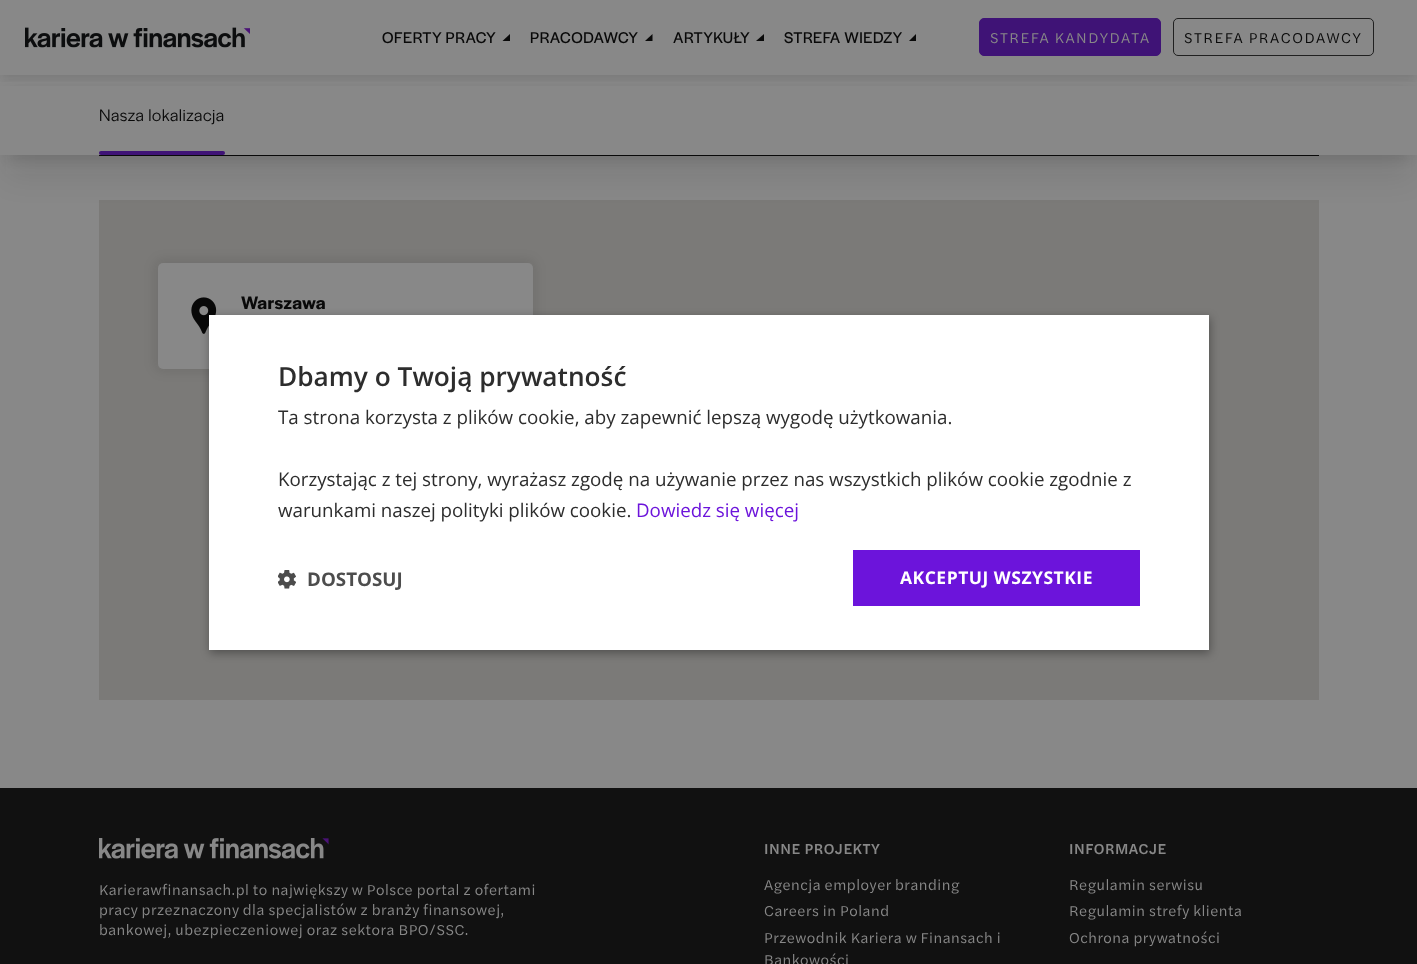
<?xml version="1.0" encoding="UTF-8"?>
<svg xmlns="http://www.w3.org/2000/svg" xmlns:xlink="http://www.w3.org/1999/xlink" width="1417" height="964">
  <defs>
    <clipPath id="clip1"><rect x="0" y="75" width="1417" height="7" /></clipPath>
  </defs>
  <rect width="100%" height="100%" fill="#888888" />
  <rect x="99" y="155" width="1220" height="1" fill="#090909" />
  <rect x="8" y="93" width="1402" height="65" fill="#090909" fill-opacity="0.1" filter="blur(6px)" />
  <rect x="99" y="200" width="1220" height="500" fill="#7b7a78" />
  <rect x="6" y="106" width="1405" height="68" fill="#090909" fill-opacity="0.1" filter="blur(15.5px)" />
  <rect y="86" width="1417" height="69" fill="#888888" />
  <g clip-path="url(#clip1)">
    <rect x="1" y="6" width="1415" height="73" fill="#090909" fill-opacity="0.1" filter="blur(4px)" />
  </g>
  <image x="25" y="27" width="225" height="21" xlink:href="image1.png" />
  <path d="M 510 41 h -7.5 l 7.5 -7 z" fill="#090909" />
  <path d="M 652.5 41 h -7.5 l 7.5 -7 z" fill="#090909" />
  <path d="M 764 41 h -8 l 8 -7 z" fill="#090909" />
  <path d="M 916 41 h -7 l 7 -7 z" fill="#090909" />
  <rect x="979.5" y="18.5" width="181" height="37" rx="4.5" fill="#3f1376" stroke="#3f1376" />
  <rect x="1173.5" y="18.5" width="200" height="37" rx="4.5" fill="none" stroke="#202020" />
  <rect x="99" y="151" width="126" height="4" rx="2" fill="#3f1376" />
  <rect x="155" y="260" width="380" height="111" rx="8" fill="#090909" fill-opacity="0.1" filter="blur(6px)" />
  <rect x="158" y="263" width="375" height="106" rx="5" fill="#888888" />
  <image x="191" y="297" width="26" height="37" xlink:href="image2.png" />
  <rect x="210" y="318" width="1000" height="335" fill="#000000" fill-opacity="0.35" filter="blur(5px)" />
  <rect x="209" y="315" width="1000" height="335" fill="#ffffff" />
  <image x="278" y="570" width="18" height="19" xlink:href="image3.png" />
  <rect x="853" y="550" width="287" height="56" fill="#6c14db" />
  <rect y="788" width="1417" height="176" fill="#111111" />
  <image x="99" y="838" width="230" height="21" xlink:href="image4.png" />
  <text x="382" y="43" style="font-family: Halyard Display; font-size: 16.25px; letter-spacing: 0.5px; fill: #090909">OFERTY PRACY</text>
  <text x="530" y="43" style="font-family: Halyard Display; font-size: 16.25px; letter-spacing: 0.5px; fill: #090909">PRACODAWCY</text>
  <text x="673" y="43" style="font-family: Halyard Display; font-size: 16.25px; letter-spacing: 0.5px; fill: #090909">ARTYKUŁY</text>
  <text x="784" y="43" style="font-family: Halyard Display; font-size: 16.25px; letter-spacing: 0.5px; fill: #090909">STREFA WIEDZY</text>
  <text x="990" y="43" style="font-family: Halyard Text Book; font-size: 15px; letter-spacing: 1.5px; fill: #888888">STREFA KANDYDATA</text>
  <text x="1184" y="43" style="font-family: Halyard Text Book; font-size: 15px; letter-spacing: 1.5px; fill: #090909">STREFA PRACODAWCY</text>
  <text x="99" y="121" style="font-family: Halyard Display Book; font-size: 17.5px; letter-spacing: 0.5px; fill: #090909">Nasza lokalizacja</text>
  <text x="241" y="309" style="font-family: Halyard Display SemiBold; font-size: 18.75px; font-weight: 600; letter-spacing: 0.5px; fill: #090909">Warszawa</text>
  <text x="278" y="386" style="font-family: Open Sans; font-size: 26.25px; font-weight: 600; fill: #2d2d2d">Dbamy o Twoją prywatność</text>
  <text x="278" y="424" style="font-family: Open Sans; font-size: 18.75px; fill: #2d2d2d">Ta strona korzysta z plików cookie, aby zapewnić lepszą wygodę użytkowania.</text>
  <text x="278" y="486" style="font-family: Open Sans; font-size: 18.75px; fill: #2d2d2d">Korzystając z tej strony, wyrażasz zgodę na używanie przez nas wszystkich plików cookie zgodnie z</text>
  <text x="278" y="517" style="font-family: Open Sans; font-size: 18.75px; fill: #2d2d2d">warunkami naszej polityki plików cookie.</text>
  <text x="636" y="517" style="font-family: Open Sans; font-size: 18.75px; fill: #6c14db">Dowiedz się więcej</text>
  <text x="307" y="586" style="font-family: Open Sans; font-size: 18.75px; font-weight: bold; fill: #4d4d4d">DOSTOSUJ</text>
  <text x="900" y="584" style="font-family: Open Sans; font-size: 17.5px; font-weight: bold; letter-spacing: 0.5px; fill: #ffffff">AKCEPTUJ WSZYSTKIE</text>
  <text x="99" y="895" style="font-family: Halyard Text Book; font-size: 15px; letter-spacing: 0.5px; fill: #888888">Karierawfinansach.pl to największy w Polsce portal z ofertami</text>
  <text x="99" y="915" style="font-family: Halyard Text Book; font-size: 15px; letter-spacing: 0.5px; fill: #888888">pracy przeznaczony dla specjalistów z branży finansowej,</text>
  <text x="99" y="935" style="font-family: Halyard Text Book; font-size: 15px; letter-spacing: 0.5px; fill: #888888">bankowej, ubezpieczeniowej oraz sektora BPO/SSC.</text>
  <text x="764" y="854" style="font-family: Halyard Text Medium; font-size: 15px; font-weight: 500; letter-spacing: 0.5px; fill: #888888">INNE PROJEKTY</text>
  <text x="764" y="890" style="font-family: Halyard Text Book; font-size: 15px; letter-spacing: 0.5px; fill: #888888">Agencja employer branding</text>
  <text x="764" y="916" style="font-family: Halyard Text Book; font-size: 15px; letter-spacing: 0.5px; fill: #888888">Careers in Poland</text>
  <text x="764" y="943" style="font-family: Halyard Text Book; font-size: 15px; letter-spacing: 0.5px; fill: #888888">Przewodnik Kariera w Finansach i</text>
  <text x="764" y="965" style="font-family: Halyard Text Book; font-size: 15px; letter-spacing: 0.5px; fill: #888888">Bankowości</text>
  <text x="1069" y="854" style="font-family: Halyard Text Medium; font-size: 15px; font-weight: 500; letter-spacing: 0.5px; fill: #888888">INFORMACJE</text>
  <text x="1069" y="890" style="font-family: Halyard Text Book; font-size: 15px; letter-spacing: 0.5px; fill: #888888">Regulamin serwisu</text>
  <text x="1069" y="916" style="font-family: Halyard Text Book; font-size: 15px; letter-spacing: 0.5px; fill: #888888">Regulamin strefy klienta</text>
  <text x="1069" y="943" style="font-family: Halyard Text Book; font-size: 15px; letter-spacing: 0.5px; fill: #888888">Ochrona prywatności</text>
</svg>
